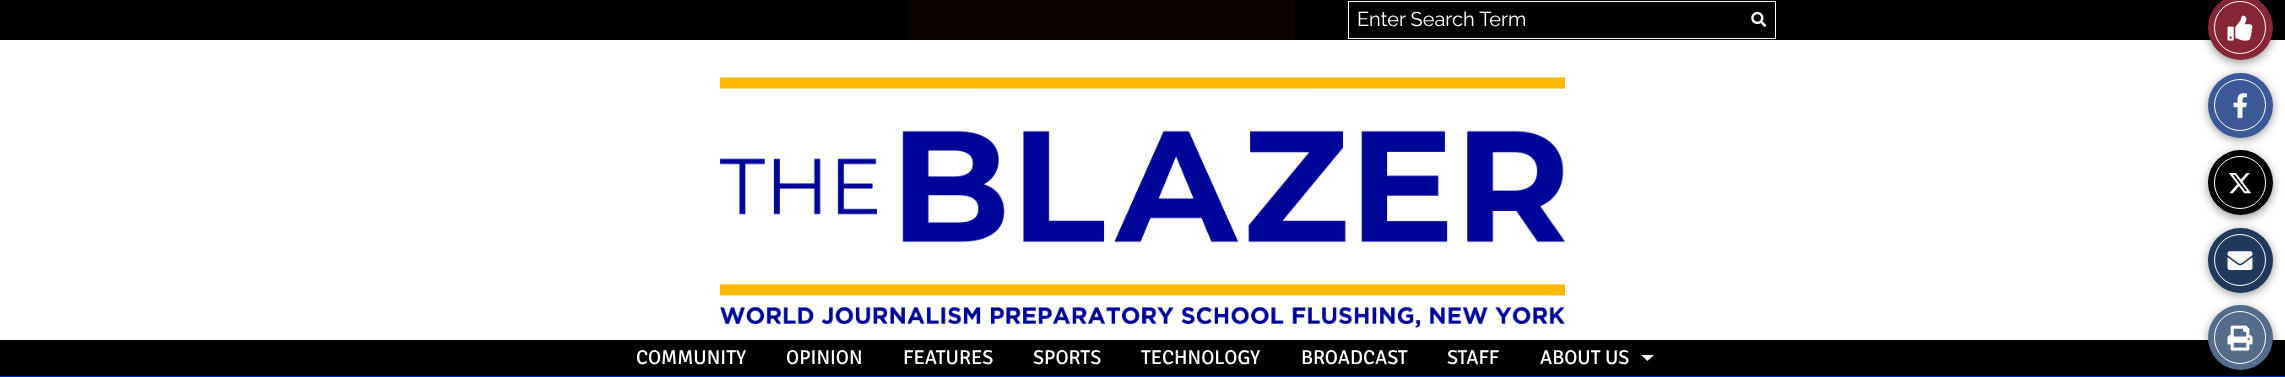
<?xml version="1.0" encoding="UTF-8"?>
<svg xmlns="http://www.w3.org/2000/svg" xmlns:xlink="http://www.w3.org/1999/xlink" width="2285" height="377">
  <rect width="100%" height="100%" fill="#ffffff" />
  <rect width="2285" height="40" fill="#000000" />
  <rect x="909" width="385" height="40" fill="#0c0000" />
  <rect x="1348.5" y="1.5" width="427" height="37" fill="none" stroke="#ffffff" />
  <image x="1751" y="11" width="16" height="16" xlink:href="image1.png" />
  <image x="720" y="77" width="845" height="251" xlink:href="image2.png" />
  <rect y="340" width="2285" height="36" fill="#000000" />
  <rect y="376" width="2285" height="1" fill="#002db3" />
  <path d="M 1641 355 h 13 l -6.5 6 z" fill="#ffffff" />
  <rect x="2208" y="-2" width="65" height="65" rx="32.5" fill="#000000" fill-opacity="0.4" filter="blur(5px)" />
  <circle cx="2240.5" cy="27.5" r="32.5" fill="#862635" />
  <rect x="2214.5" y="1.5" width="51" height="52" rx="25.5" fill="none" stroke="#ffffff" />
  <image x="2227" y="15" width="26" height="26" xlink:href="image3.png" />
  <rect x="2208" y="75" width="65" height="65" rx="32.5" fill="#000000" fill-opacity="0.4" filter="blur(5px)" />
  <circle cx="2240.5" cy="105.5" r="32.5" fill="#3b5998" />
  <circle cx="2240" cy="105" r="25.5" fill="none" stroke="#ffffff" />
  <image x="2233" y="93" width="14" height="26" xlink:href="image4.png" />
  <rect x="2208" y="153" width="65" height="65" rx="32.5" fill="#000000" fill-opacity="0.4" filter="blur(5px)" />
  <circle cx="2240.5" cy="182.5" r="32.5" fill="#000000" />
  <rect x="2214.5" y="156.5" width="51" height="52" rx="25.5" fill="none" stroke="#ffffff" />
  <image x="2229" y="173" width="23" height="21" xlink:href="image5.png" />
  <rect x="2208" y="230" width="65" height="65" rx="32.5" fill="#000000" fill-opacity="0.4" filter="blur(5px)" />
  <circle cx="2240.5" cy="260.5" r="32.5" fill="#1f385c" />
  <circle cx="2240" cy="260" r="25.5" fill="none" stroke="#ffffff" />
  <image x="2227" y="251" width="26" height="19" xlink:href="image6.png" />
  <rect x="2208" y="308" width="65" height="65" rx="32.5" fill="#000000" fill-opacity="0.4" filter="blur(5px)" />
  <circle cx="2240.5" cy="337.5" r="32.5" fill="#546b8b" />
  <rect x="2214.5" y="311.5" width="51" height="52" rx="25.5" fill="none" stroke="#ffffff" />
  <image x="2227" y="325" width="26" height="26" xlink:href="image7.png" />
  <text x="1357" y="26" style="font-family: Raleway; font-size: 20px; fill: #ffffff">Enter Search Term</text>
  <text x="636" y="364" style="font-family: Signika; font-size: 20px; fill: #ffffff">COMMUNITY</text>
  <text x="786" y="364" style="font-family: Signika; font-size: 20px; fill: #ffffff">OPINION</text>
  <text x="903" y="364" style="font-family: Signika; font-size: 20px; fill: #ffffff">FEATURES</text>
  <text x="1033" y="364" style="font-family: Signika; font-size: 20px; fill: #ffffff">SPORTS</text>
  <text x="1141" y="364" style="font-family: Signika; font-size: 20px; fill: #ffffff">TECHNOLOGY</text>
  <text x="1301" y="364" style="font-family: Signika; font-size: 20px; fill: #ffffff">BROADCAST</text>
  <text x="1447" y="364" style="font-family: Signika; font-size: 20px; fill: #ffffff">STAFF</text>
  <text x="1540" y="364" style="font-family: Signika; font-size: 20px; fill: #ffffff">ABOUT US</text>
</svg>
